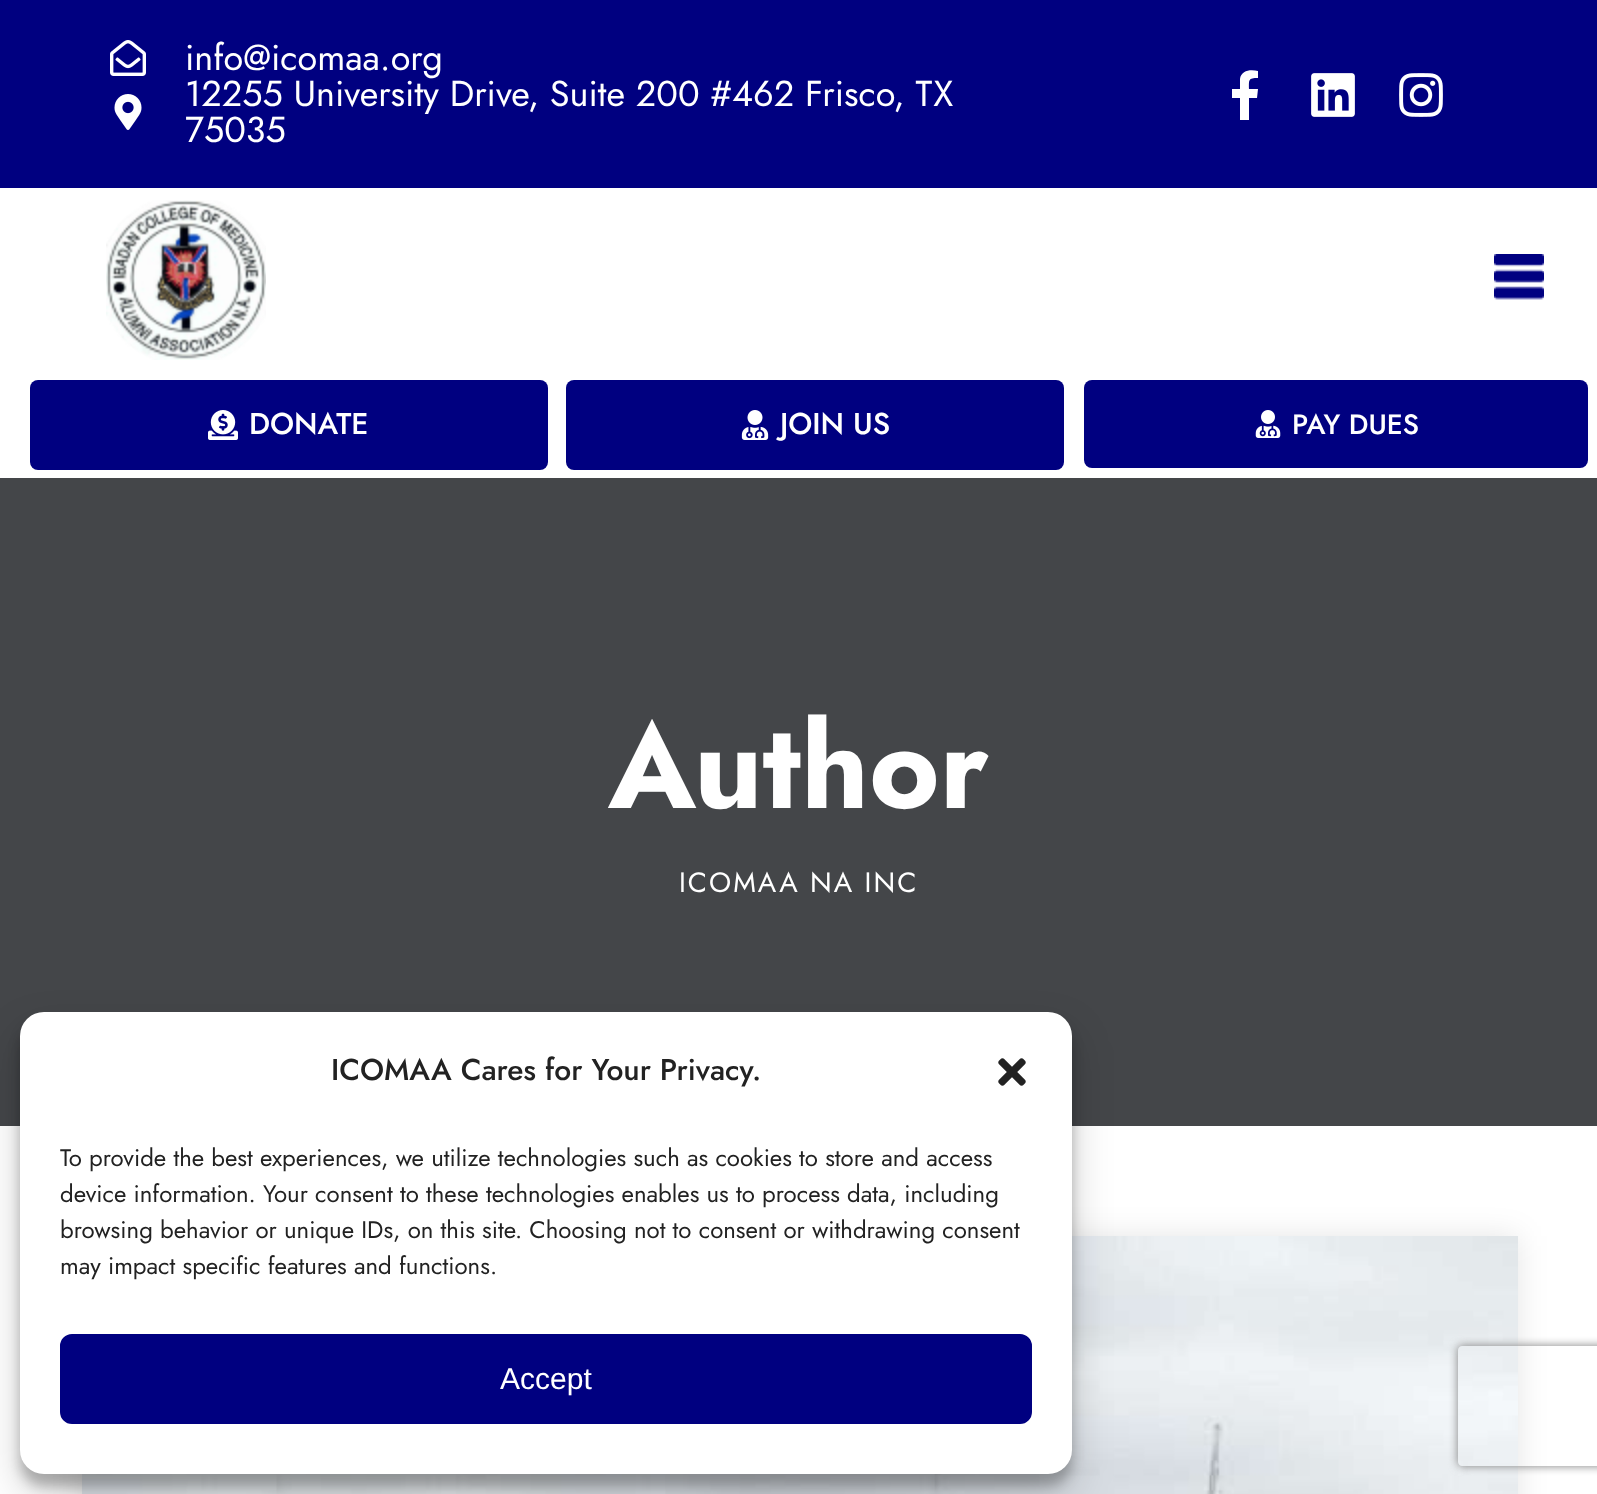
<?xml version="1.0" encoding="UTF-8"?>
<svg xmlns="http://www.w3.org/2000/svg" xmlns:xlink="http://www.w3.org/1999/xlink" width="1597" height="1494">
  <defs>
    <clipPath id="clip1"><path d="M 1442 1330 h 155 v 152 h -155 z m 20 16 h 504 c 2 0 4 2 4 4 v 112 c 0 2 -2 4 -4 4 h -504 c -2 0 -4 -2 -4 -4 v -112 c 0 -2 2 -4 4 -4 z" clip-rule="evenodd" /></clipPath>
  </defs>
  <rect width="100%" height="100%" fill="#ffffff" />
  <rect width="1597" height="188" fill="#000080" />
  <image x="110" y="40" width="36" height="36" xlink:href="image1.png" />
  <image x="114" y="94" width="28" height="36" xlink:href="image2.png" />
  <path d="M 1257 98 l 1 -9 h -9 c 0 -9 -1 -11 9 -11 v -7 c -7 -2 -17 -1 -18 8 v 10 h -8 v 9 h 8 v 22 h 9 v -22 z" fill="#ffffff" />
  <image x="1311" y="73" width="44" height="44" xlink:href="image3.png" />
  <image x="1399" y="73" width="44" height="44" xlink:href="image4.png" />
  <image x="106" y="200" width="160" height="160" xlink:href="image5.png" />
  <image x="1494" y="254" width="50" height="46" xlink:href="image6.png" />
  <rect x="30" y="380" width="518" height="90" rx="8" fill="#000080" />
  <image x="208" y="410" width="30" height="30" xlink:href="image7.png" />
  <rect x="566" y="380" width="498" height="90" rx="8" fill="#000080" />
  <image x="741" y="410" width="28" height="30" xlink:href="image8.png" />
  <rect x="1084" y="380" width="504" height="88" rx="8" fill="#000080" />
  <image x="1255" y="410" width="26" height="28" xlink:href="image9.png" />
  <rect y="478" width="1597" height="648" fill="#444649" />
  <rect x="82" y="1236" width="1436" height="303" fill="#000000" fill-opacity="0.1" filter="blur(15px)" />
  <image x="82" y="1236" width="1436" height="258" xlink:href="image10.png" />
  <rect x="20" y="1024" width="1052" height="462" rx="24" fill="#000000" fill-opacity="0.23" filter="blur(6px)" />
  <rect x="20" y="1032" width="1052" height="462" rx="24" fill="#000000" fill-opacity="0.19" filter="blur(20px)" />
  <rect x="20" y="1012" width="1052" height="462" rx="24" fill="#ffffff" />
  <image x="998" y="1058" width="28" height="28" xlink:href="image11.png" />
  <rect x="61" y="1335" width="970" height="88" rx="11" fill="#000080" stroke="#000080" stroke-width="2" />
  <g clip-path="url(#clip1)">
    <rect x="1458" y="1346" width="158" height="120" rx="4" fill="#808080" filter="blur(5px)" />
  </g>
  <text x="185" y="70" style="font-family: Jost; font-size: 36px; fill: #ffffff">info@icomaa.org</text>
  <text x="185" y="106" style="font-family: Jost; font-size: 36px; fill: #ffffff">12255 University Drive, Suite 200 #462 Frisco, TX</text>
  <text x="185" y="142" style="font-family: Jost; font-size: 36px; fill: #ffffff">75035</text>
  <text x="249" y="434" style="font-family: Jost; font-size: 30px; font-weight: 500; fill: #ffffff">DONATE</text>
  <text x="780" y="434" style="font-family: Jost; font-size: 30px; font-weight: 500; fill: #ffffff">JOIN US</text>
  <text x="1292" y="434" style="font-family: Jost; font-size: 28px; font-weight: 500; fill: #ffffff">PAY DUES</text>
  <text x="608" y="808" style="font-family: Jost; font-size: 120px; font-weight: bold; fill: #ffffff">Author</text>
  <text x="679" y="892" style="font-family: Jost; font-size: 28px; letter-spacing: 2px; fill: #ffffff">ICOMAA NA INC</text>
  <text x="331" y="1080" style="font-family: Jost; font-size: 30px; font-weight: 500; fill: #222222">ICOMAA Cares for Your Privacy.</text>
  <text x="60" y="1166" style="font-family: Jost; font-size: 24px; fill: #222222">To provide the best experiences, we utilize technologies such as cookies to store and access</text>
  <text x="60" y="1202" style="font-family: Jost; font-size: 24px; fill: #222222">device information. Your consent to these technologies enables us to process data, including</text>
  <text x="60" y="1238" style="font-family: Jost; font-size: 24px; fill: #222222">browsing behavior or unique IDs, on this site. Choosing not to consent or withdrawing consent</text>
  <text x="60" y="1274" style="font-family: Jost; font-size: 24px; fill: #222222">may impact specific features and functions.</text>
  <text x="500" y="1389" style="font-family: Liberation Sans; font-size: 30px; fill: #ffffff">Accept</text>
</svg>
